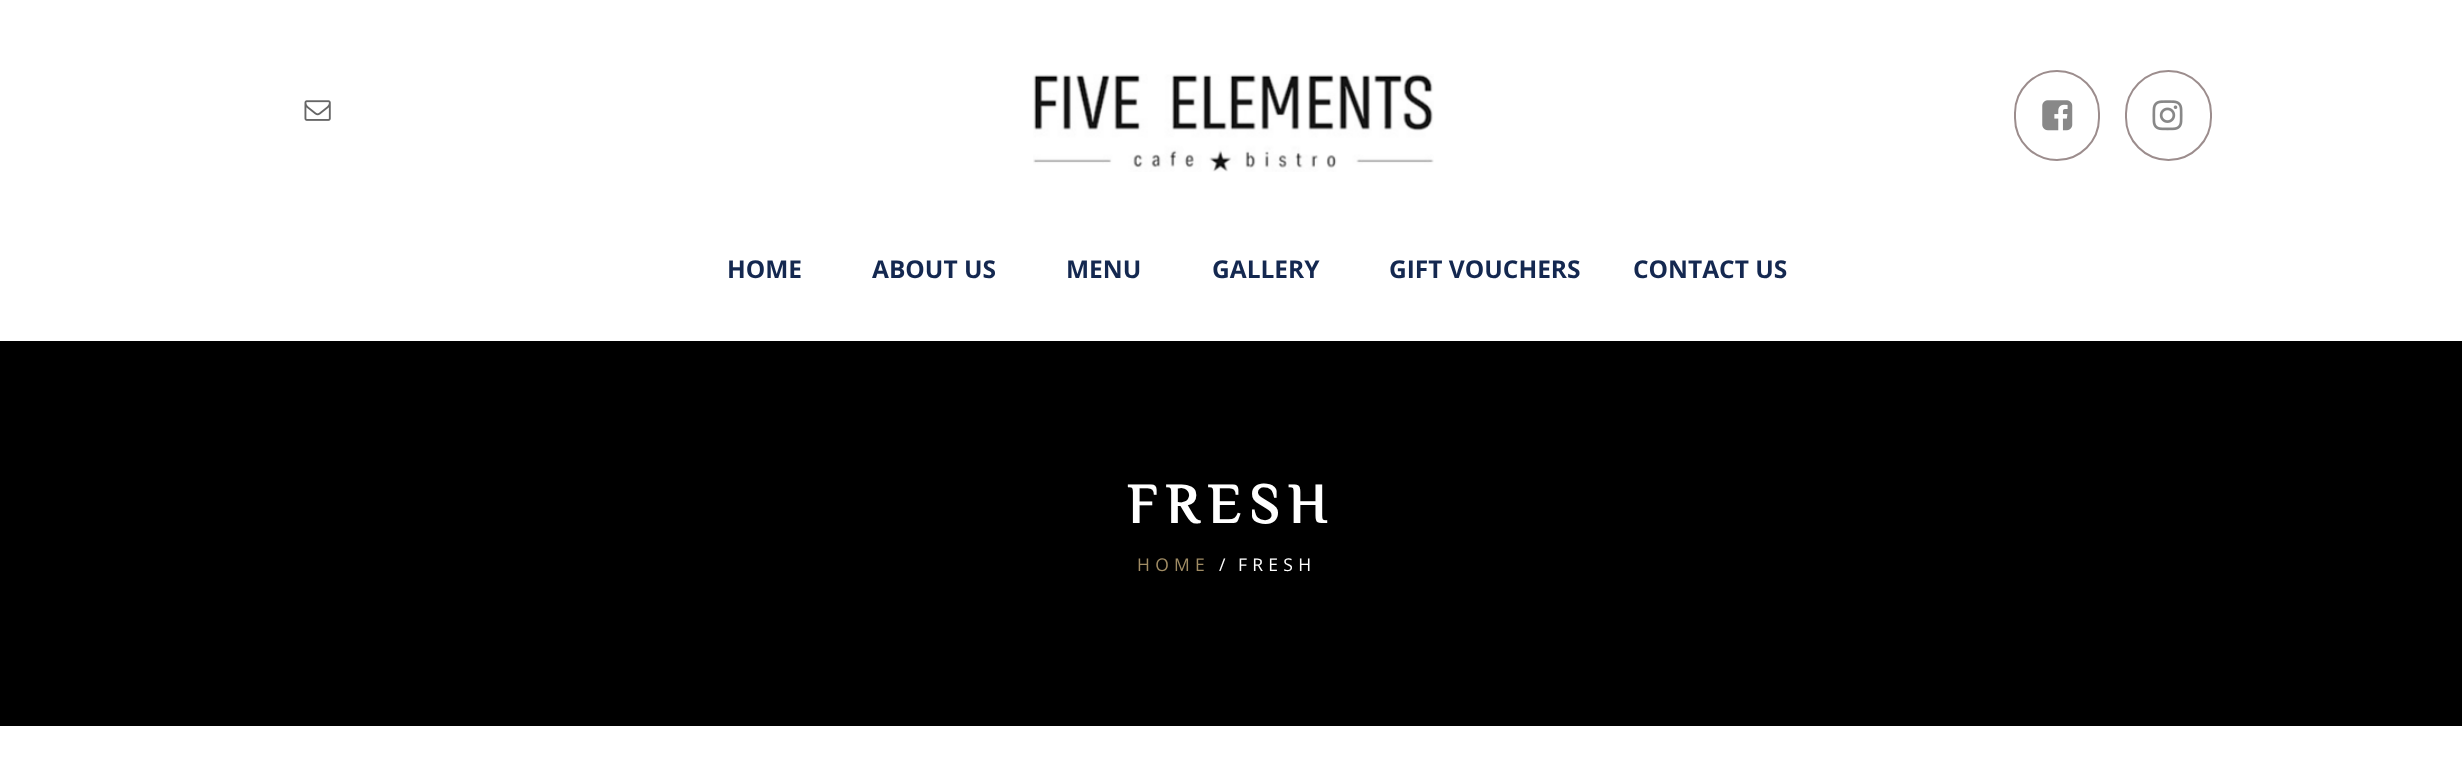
<?xml version="1.0" encoding="UTF-8"?>
<svg xmlns="http://www.w3.org/2000/svg" xmlns:xlink="http://www.w3.org/1999/xlink" width="2462" height="780">
  <rect width="100%" height="100%" fill="#ffffff" />
  <image x="304" y="100" width="27" height="21" xlink:href="image1.png" />
  <image x="1033" y="74" width="401" height="98" xlink:href="image2.png" />
  <rect x="2015" y="71" width="84" height="89" rx="42" fill="none" stroke="#9c8d8d" stroke-width="2" />
  <image x="2042" y="100" width="31" height="31" xlink:href="image3.png" />
  <rect x="2126" y="71" width="85" height="89" rx="42.5" fill="none" stroke="#9c8d8d" stroke-width="2" />
  <image x="2152" y="100" width="31" height="31" xlink:href="image4.png" />
  <rect y="341" width="2462" height="385" fill="#000000" />
  <text x="727" y="278" style="font-family: Open Sans; font-size: 24.5px; font-weight: bold; fill: #142850">HOME</text>
  <text x="872" y="278" style="font-family: Open Sans; font-size: 24.5px; font-weight: bold; fill: #142850">ABOUT US</text>
  <text x="1066" y="278" style="font-family: Open Sans; font-size: 24.5px; font-weight: bold; fill: #142850">MENU</text>
  <text x="1212" y="278" style="font-family: Open Sans; font-size: 24.5px; font-weight: bold; fill: #142850">GALLERY</text>
  <text x="1389" y="278" style="font-family: Open Sans; font-size: 24.5px; font-weight: bold; fill: #142850">GIFT VOUCHERS</text>
  <text x="1633" y="278" style="font-family: Open Sans; font-size: 24.5px; font-weight: bold; fill: #142850">CONTACT US</text>
  <text x="1127" y="523" style="font-family: ZCOOL XiaoWei; font-size: 56px; font-weight: bold; letter-spacing: 8.75px; fill: #ffffff">FRESH</text>
  <text x="1137" y="571" style="font-family: Open Sans; font-size: 17.5px; letter-spacing: 5.25px; fill: #a08c64">HOME</text>
  <text x="1219" y="571" style="font-family: Open Sans; font-size: 17.5px; letter-spacing: 5.25px; fill: #ffffff">/</text>
  <text x="1238" y="571" style="font-family: Open Sans; font-size: 17.5px; letter-spacing: 5.25px; fill: #ffffff">FRESH</text>
</svg>
